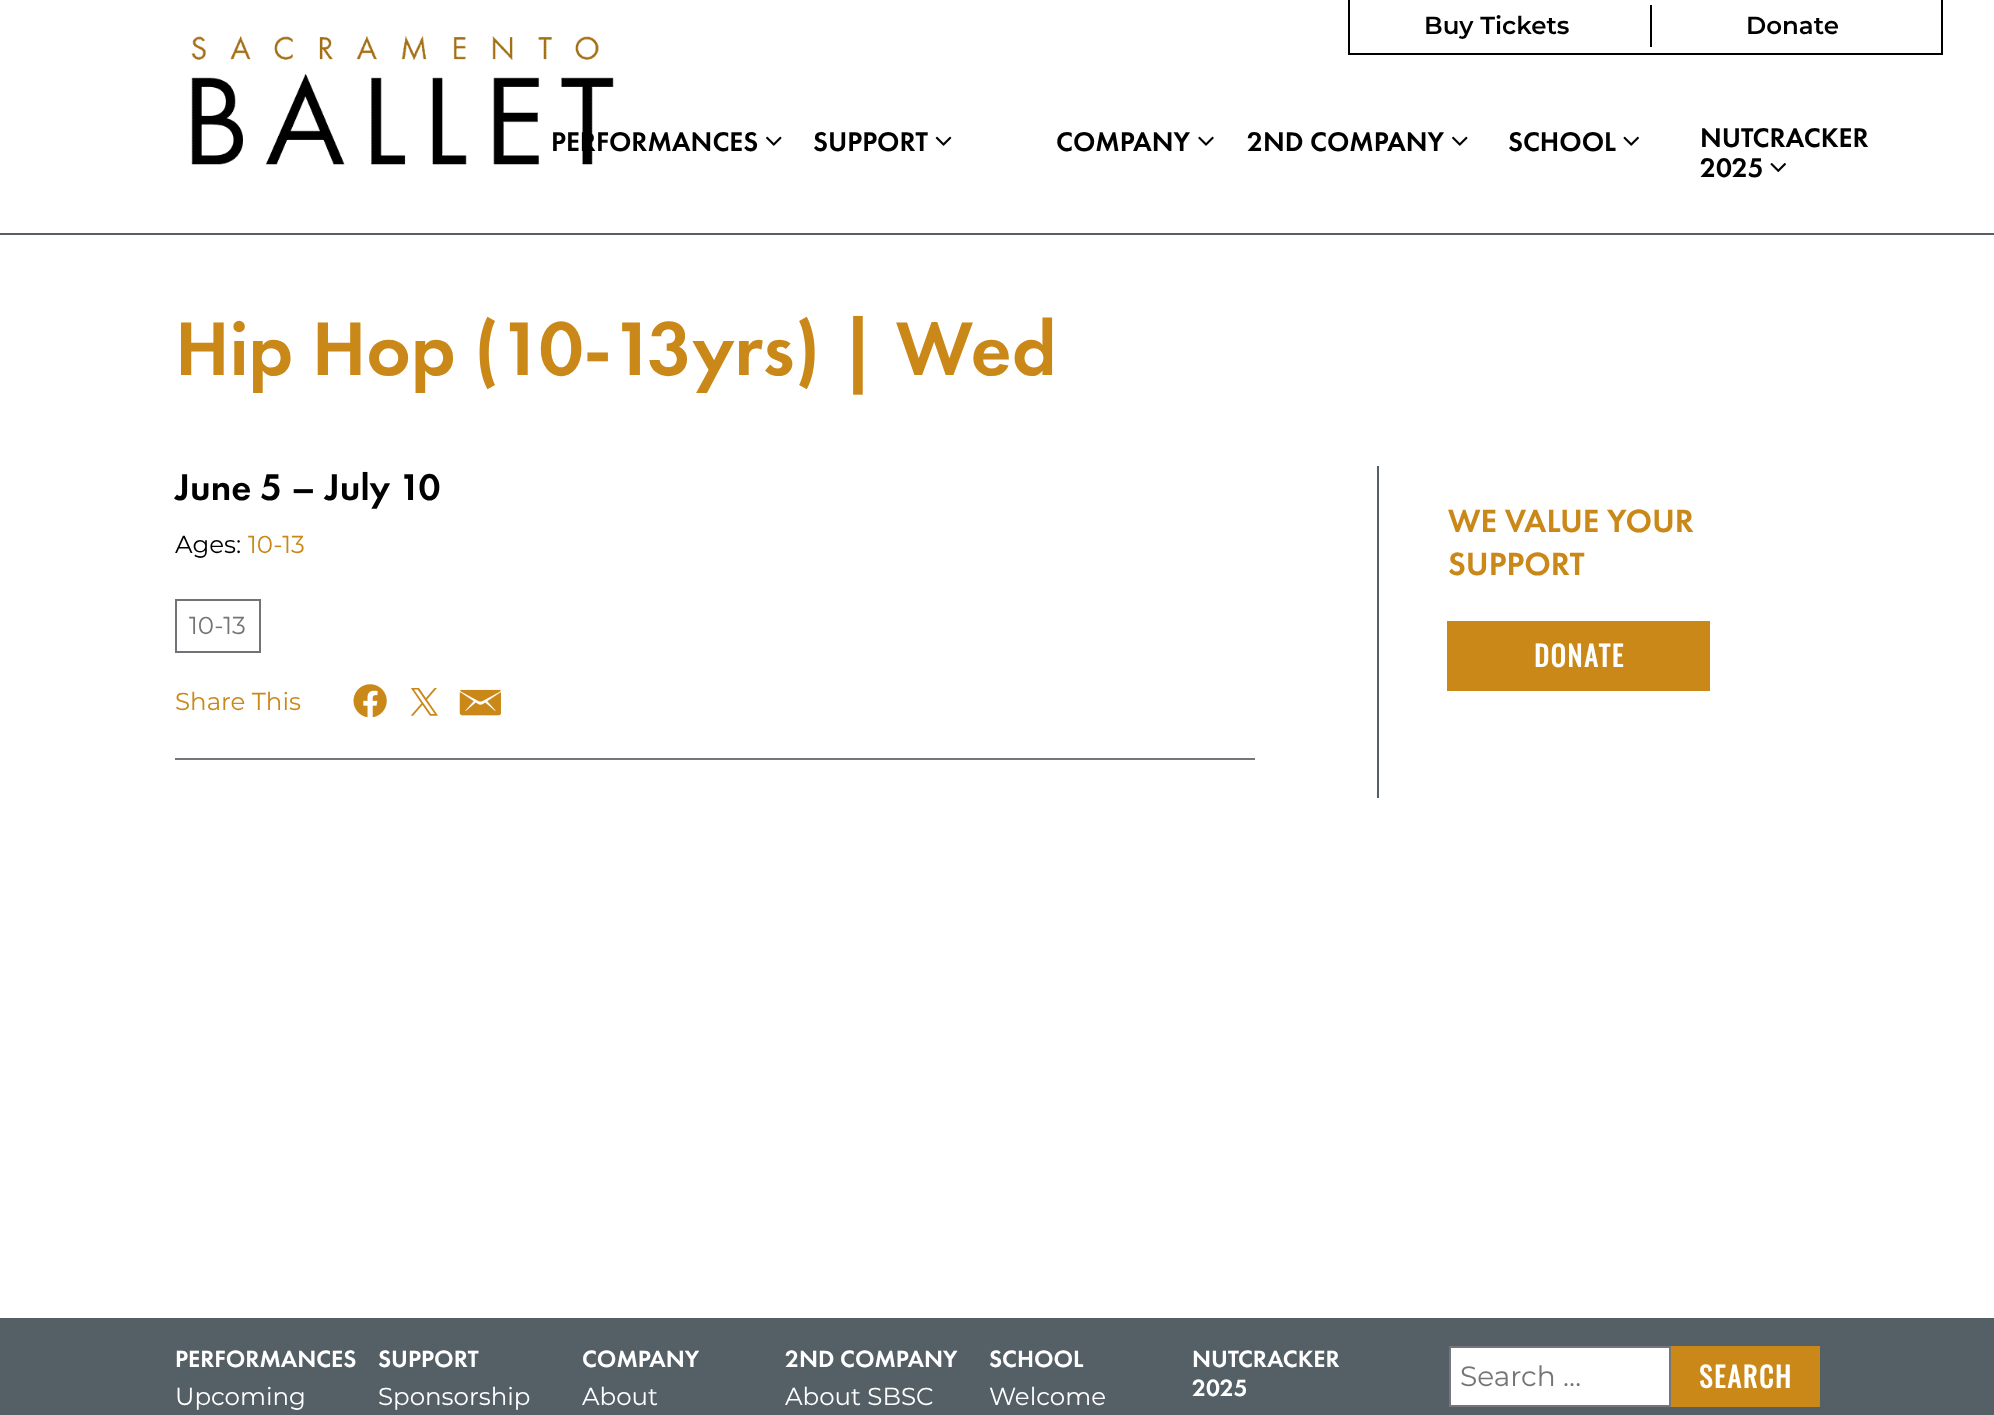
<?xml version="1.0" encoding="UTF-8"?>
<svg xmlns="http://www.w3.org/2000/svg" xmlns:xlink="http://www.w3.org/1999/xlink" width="1994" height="1415">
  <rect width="100%" height="100%" fill="#ffffff" />
  <rect y="233" width="1994" height="2" fill="#545f66" />
  <rect x="1941" width="2" height="54" fill="#000000" />
  <rect x="1348" y="53" width="595" height="2" fill="#000000" />
  <rect x="1348" width="2" height="54" fill="#000000" />
  <rect x="1650" y="5" width="2" height="42" fill="#000000" />
  <image x="191" y="35" width="423" height="130" xlink:href="image1.png" />
  <image x="766" y="136" width="16" height="10" xlink:href="image2.png" />
  <image x="935" y="136" width="17" height="10" xlink:href="image3.png" />
  <image x="1198" y="136" width="16" height="10" xlink:href="image4.png" />
  <image x="1452" y="136" width="16" height="10" xlink:href="image2.png" />
  <image x="1623" y="136" width="16" height="10" xlink:href="image5.png" />
  <image x="1770" y="163" width="16" height="9" xlink:href="image6.png" />
  <rect x="175" y="758" width="1080" height="2" fill="#74767b" />
  <rect x="176" y="600" width="84" height="52" fill="none" stroke="#727376" stroke-width="2" />
  <image x="353" y="684" width="34" height="34" xlink:href="image7.png" />
  <image x="410" y="688" width="28" height="28" xlink:href="image8.png" />
  <image x="459" y="689" width="42" height="27" xlink:href="image9.png" />
  <rect x="1377" y="466" width="2" height="332" fill="#545f66" />
  <rect x="1447" y="621" width="263" height="70" fill="#ca8819" />
  <rect y="1318" width="1994" height="97" fill="#545f66" />
  <rect x="1450" y="1347" width="220" height="59" fill="#ffffff" stroke="#74767b" stroke-width="2" />
  <rect x="1671" y="1346" width="149" height="61" fill="#ca8819" />
  <text x="1424" y="34" style="font-family: Montserrat; font-size: 24.5px; font-weight: 600; fill: #000000">Buy Tickets</text>
  <text x="1746" y="34" style="font-family: Montserrat; font-size: 24.5px; font-weight: 600; fill: #000000">Donate</text>
  <text x="551" y="151" style="font-family: Futura PT; font-size: 28px; font-weight: 500; fill: #000000">PERFORMANCES</text>
  <text x="813" y="151" style="font-family: Futura PT; font-size: 28px; font-weight: 500; fill: #000000">SUPPORT</text>
  <text x="1056" y="151" style="font-family: Futura PT; font-size: 28px; font-weight: 500; fill: #000000">COMPANY</text>
  <text x="1247" y="151" style="font-family: Futura PT; font-size: 28px; font-weight: 500; fill: #000000">2ND COMPANY</text>
  <text x="1508" y="151" style="font-family: Futura PT; font-size: 28px; font-weight: 500; fill: #000000">SCHOOL</text>
  <text x="1700" y="147" style="font-family: Futura PT; font-size: 28px; font-weight: 500; fill: #000000">NUTCRACKER</text>
  <text x="1700" y="177" style="font-family: Futura PT; font-size: 28px; font-weight: 500; fill: #000000">2025</text>
  <text x="175" y="375" style="font-family: Futura PT; font-size: 78.75px; font-weight: 500; fill: #ca8819">Hip Hop (10-13yrs) | Wed</text>
  <text x="175" y="500" style="font-family: Futura PT; font-size: 38.5px; font-weight: 500; fill: #000000">June 5 – July 10</text>
  <text x="175" y="553" style="font-family: Montserrat; font-size: 24.5px; fill: #000000">Ages:</text>
  <text x="248" y="553" style="font-family: Montserrat; font-size: 24.5px; fill: #ca8819">10-13</text>
  <text x="189" y="634" style="font-family: Montserrat; font-size: 24.5px; fill: #757575">10-13</text>
  <text x="175" y="710" style="font-family: Montserrat; font-size: 24.5px; fill: #ca8819">Share This</text>
  <text x="1448" y="532" style="font-family: Futura PT; font-size: 33.25px; font-weight: 500; fill: #ca8819">WE VALUE YOUR</text>
  <text x="1448" y="575" style="font-family: Futura PT; font-size: 33.25px; font-weight: 500; fill: #ca8819">SUPPORT</text>
  <text x="1534" y="667" style="font-family: Oswald; font-size: 28px; font-weight: bold; letter-spacing: 1.75px; fill: #ffffff">DONATE</text>
  <text x="175" y="1367" style="font-family: Futura PT; font-size: 24.5px; font-weight: 500; fill: #ffffff">PERFORMANCES</text>
  <text x="175" y="1405" style="font-family: Montserrat; font-size: 24.5px; fill: #ffffff">Upcoming</text>
  <text x="378" y="1367" style="font-family: Futura PT; font-size: 24.5px; font-weight: 500; fill: #ffffff">SUPPORT</text>
  <text x="378" y="1405" style="font-family: Montserrat; font-size: 24.5px; fill: #ffffff">Sponsorship</text>
  <text x="582" y="1367" style="font-family: Futura PT; font-size: 24.5px; font-weight: 500; fill: #ffffff">COMPANY</text>
  <text x="582" y="1405" style="font-family: Montserrat; font-size: 24.5px; fill: #ffffff">About</text>
  <text x="785" y="1367" style="font-family: Futura PT; font-size: 24.5px; font-weight: 500; fill: #ffffff">2ND COMPANY</text>
  <text x="785" y="1405" style="font-family: Montserrat; font-size: 24.5px; fill: #ffffff">About SBSC</text>
  <text x="989" y="1367" style="font-family: Futura PT; font-size: 24.5px; font-weight: 500; fill: #ffffff">SCHOOL</text>
  <text x="989" y="1405" style="font-family: Montserrat; font-size: 24.5px; fill: #ffffff">Welcome</text>
  <text x="1192" y="1367" style="font-family: Futura PT; font-size: 24.5px; font-weight: 500; fill: #ffffff">NUTCRACKER</text>
  <text x="1192" y="1396" style="font-family: Futura PT; font-size: 24.5px; font-weight: 500; fill: #ffffff">2025</text>
  <text x="1460" y="1386" style="font-family: Montserrat; font-size: 28px; fill: #757575">Search …</text>
  <text x="1699" y="1388" style="font-family: Oswald; font-size: 28px; font-weight: bold; letter-spacing: 1.75px; fill: #ffffff">SEARCH</text>
</svg>
